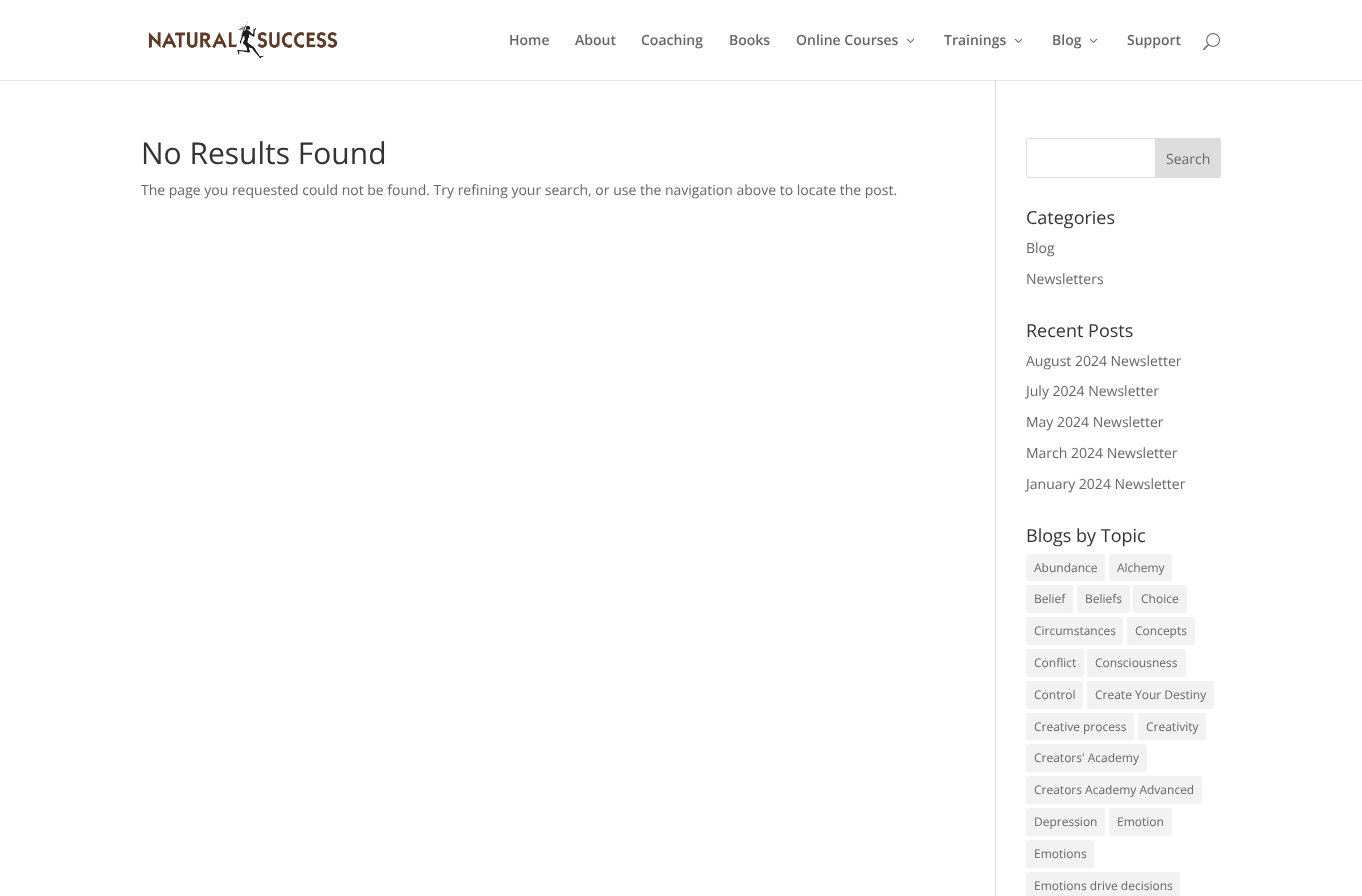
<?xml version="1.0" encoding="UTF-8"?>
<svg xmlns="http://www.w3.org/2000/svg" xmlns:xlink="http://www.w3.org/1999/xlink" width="1362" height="896">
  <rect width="100%" height="100%" fill="#ffffff" />
  <rect y="80" width="1362" height="1" fill="#e6e6e6" />
  <image x="148" y="22" width="190" height="36" xlink:href="image1.png" />
  <image x="906" y="38" width="9" height="5" xlink:href="image2.png" />
  <image x="1014" y="38" width="9" height="5" xlink:href="image2.png" />
  <image x="1089" y="38" width="9" height="5" xlink:href="image2.png" />
  <image x="1203" y="33" width="17" height="18" xlink:href="image3.png" />
  <rect x="995" y="80" width="1" height="816" fill="#e2e2e2" />
  <rect x="995" y="80" width="1" height="1" fill="#cbcbcb" />
  <rect x="1026.5" y="138.5" width="194" height="39" rx="2.5" fill="none" stroke="#dddddd" />
  <path d="M 1155.5 138.5 h 62.5 c 1.5 0 2.5 1 2.5 2.5 v 34 c 0 1.5 -1 2.5 -2.5 2.5 h -62.5 z" fill="#dddddd" stroke="#dddddd" />
  <rect x="1026" y="554" width="79" height="27" rx="3" fill="#f2f2f2" />
  <rect x="1109" y="554" width="63" height="27" rx="3" fill="#f2f2f2" />
  <rect x="1026" y="585" width="47" height="28" rx="3" fill="#f2f2f2" />
  <rect x="1077" y="585" width="53" height="28" rx="3" fill="#f2f2f2" />
  <rect x="1133" y="585" width="54" height="28" rx="3" fill="#f2f2f2" />
  <rect x="1026" y="617" width="97" height="28" rx="3" fill="#f2f2f2" />
  <rect x="1127" y="617" width="68" height="28" rx="3" fill="#f2f2f2" />
  <rect x="1026" y="649" width="58" height="28" rx="3" fill="#f2f2f2" />
  <rect x="1087" y="649" width="99" height="28" rx="3" fill="#f2f2f2" />
  <rect x="1026" y="681" width="57" height="28" rx="3" fill="#f2f2f2" />
  <rect x="1087" y="681" width="127" height="28" rx="3" fill="#f2f2f2" />
  <rect x="1026" y="713" width="108" height="27" rx="3" fill="#f2f2f2" />
  <rect x="1138" y="713" width="68" height="27" rx="3" fill="#f2f2f2" />
  <rect x="1026" y="744" width="121" height="28" rx="3" fill="#f2f2f2" />
  <rect x="1026" y="776" width="176" height="28" rx="3" fill="#f2f2f2" />
  <rect x="1026" y="808" width="79" height="28" rx="3" fill="#f2f2f2" />
  <rect x="1109" y="808" width="63" height="28" rx="3" fill="#f2f2f2" />
  <rect x="1026" y="840" width="68" height="28" rx="3" fill="#f2f2f2" />
  <rect x="1026" y="872" width="154" height="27" rx="3" fill="#f2f2f2" />
  <text x="509" y="45" style="font-family: Open Sans; font-size: 14px; font-weight: 600; fill: #666666">Home</text>
  <text x="575" y="45" style="font-family: Open Sans; font-size: 14px; font-weight: 600; fill: #666666">About</text>
  <text x="641" y="45" style="font-family: Open Sans; font-size: 14px; font-weight: 600; fill: #666666">Coaching</text>
  <text x="729" y="45" style="font-family: Open Sans; font-size: 14px; font-weight: 600; fill: #666666">Books</text>
  <text x="796" y="45" style="font-family: Open Sans; font-size: 14px; font-weight: 600; fill: #666666">Online Courses</text>
  <text x="944" y="45" style="font-family: Open Sans; font-size: 14px; font-weight: 600; fill: #666666">Trainings</text>
  <text x="1052" y="45" style="font-family: Open Sans; font-size: 14px; font-weight: 600; fill: #666666">Blog</text>
  <text x="1127" y="45" style="font-family: Open Sans; font-size: 14px; font-weight: 600; fill: #666666">Support</text>
  <text x="141" y="164" style="font-family: Open Sans; font-size: 30px; fill: #333333">No Results Found</text>
  <text x="141" y="195" style="font-family: Open Sans; font-size: 14px; fill: #666666">The page you requested could not be found. Try refining your search, or use the navigation above to locate the post.</text>
  <text x="1166" y="164" style="font-family: Open Sans; font-size: 14px; fill: #666666">Search</text>
  <text x="1026" y="224" style="font-family: Open Sans; font-size: 18px; fill: #333333">Categories</text>
  <text x="1026" y="253" style="font-family: Open Sans; font-size: 14px; fill: #666666">Blog</text>
  <text x="1026" y="284" style="font-family: Open Sans; font-size: 14px; fill: #666666">Newsletters</text>
  <text x="1026" y="337" style="font-family: Open Sans; font-size: 18px; fill: #333333">Recent Posts</text>
  <text x="1026" y="366" style="font-family: Open Sans; font-size: 14px; fill: #666666">August 2024 Newsletter</text>
  <text x="1026" y="396" style="font-family: Open Sans; font-size: 14px; fill: #666666">July 2024 Newsletter</text>
  <text x="1026" y="427" style="font-family: Open Sans; font-size: 14px; fill: #666666">May 2024 Newsletter</text>
  <text x="1026" y="458" style="font-family: Open Sans; font-size: 14px; fill: #666666">March 2024 Newsletter</text>
  <text x="1026" y="489" style="font-family: Open Sans; font-size: 14px; fill: #666666">January 2024 Newsletter</text>
  <text x="1026" y="542" style="font-family: Open Sans; font-size: 18px; fill: #333333">Blogs by Topic</text>
  <text x="1034" y="572" style="font-family: Open Sans; font-size: 12px; fill: #666666">Abundance</text>
  <text x="1117" y="572" style="font-family: Open Sans; font-size: 12px; fill: #666666">Alchemy</text>
  <text x="1034" y="603" style="font-family: Open Sans; font-size: 12px; fill: #666666">Belief</text>
  <text x="1085" y="603" style="font-family: Open Sans; font-size: 12px; fill: #666666">Beliefs</text>
  <text x="1141" y="603" style="font-family: Open Sans; font-size: 12px; fill: #666666">Choice</text>
  <text x="1034" y="635" style="font-family: Open Sans; font-size: 12px; fill: #666666">Circumstances</text>
  <text x="1135" y="635" style="font-family: Open Sans; font-size: 12px; fill: #666666">Concepts</text>
  <text x="1034" y="667" style="font-family: Open Sans; font-size: 12px; fill: #666666">Conflict</text>
  <text x="1095" y="667" style="font-family: Open Sans; font-size: 12px; fill: #666666">Consciousness</text>
  <text x="1034" y="699" style="font-family: Open Sans; font-size: 12px; fill: #666666">Control</text>
  <text x="1095" y="699" style="font-family: Open Sans; font-size: 12px; fill: #666666">Create Your Destiny</text>
  <text x="1034" y="731" style="font-family: Open Sans; font-size: 12px; fill: #666666">Creative process</text>
  <text x="1146" y="731" style="font-family: Open Sans; font-size: 12px; fill: #666666">Creativity</text>
  <text x="1034" y="762" style="font-family: Open Sans; font-size: 12px; fill: #666666">Creators' Academy</text>
  <text x="1034" y="794" style="font-family: Open Sans; font-size: 12px; fill: #666666">Creators Academy Advanced</text>
  <text x="1034" y="826" style="font-family: Open Sans; font-size: 12px; fill: #666666">Depression</text>
  <text x="1117" y="826" style="font-family: Open Sans; font-size: 12px; fill: #666666">Emotion</text>
  <text x="1034" y="858" style="font-family: Open Sans; font-size: 12px; fill: #666666">Emotions</text>
  <text x="1034" y="890" style="font-family: Open Sans; font-size: 12px; fill: #666666">Emotions drive decisions</text>
</svg>
